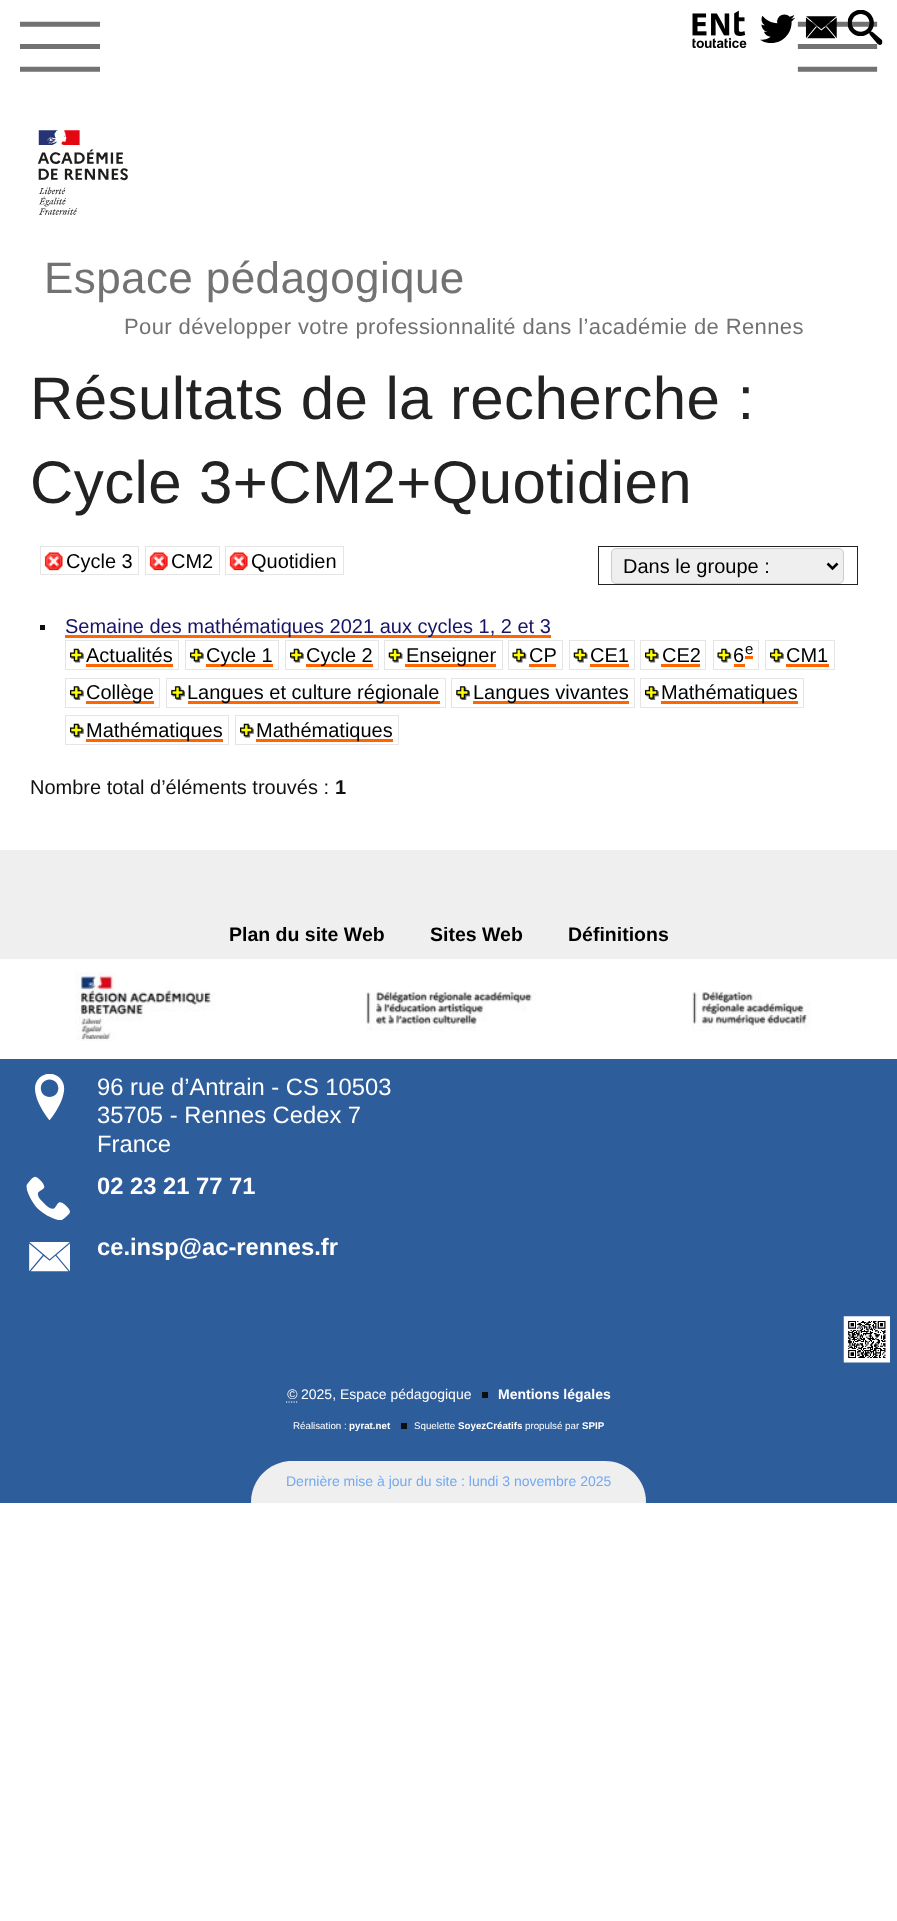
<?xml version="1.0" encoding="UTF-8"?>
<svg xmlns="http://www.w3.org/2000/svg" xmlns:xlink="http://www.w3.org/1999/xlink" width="897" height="1921">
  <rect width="100%" height="100%" fill="#ffffff" />
  <image x="692" y="10" width="55" height="38" xlink:href="image1.png" />
  <image x="760" y="14" width="35" height="29" xlink:href="image2.png" />
  <image x="797" y="21" width="81" height="51" xlink:href="image6.png" />
  <image x="805" y="16" width="32" height="23" xlink:href="image3.png" />
  <image x="847" y="10" width="36" height="35" xlink:href="image4.png" />
  <image x="20" y="21" width="80" height="51" xlink:href="image5.png" />
  <image x="37" y="130" width="91" height="85" xlink:href="image7.png" />
  <image x="44" y="552" width="19" height="19" xlink:href="image8.png" />
  <rect x="40.5" y="546.5" width="98" height="28" fill="none" stroke="#e5e5e5" />
  <image x="149" y="552" width="19" height="19" xlink:href="image9.png" />
  <rect x="145.5" y="546.5" width="74" height="28" fill="none" stroke="#e5e5e5" />
  <image x="229" y="552" width="19" height="19" xlink:href="image8.png" />
  <rect x="225.5" y="546.5" width="118" height="28" fill="none" stroke="#e5e5e5" />
  <rect x="598.5" y="546.5" width="259" height="38" fill="none" stroke="#222222" />
  <rect x="611.5" y="548.5" width="232" height="35" rx="4.5" fill="#efefef" stroke="#cccccc" />
  <path d="M 827.5 563.5 l 5 5 l 5 -5" fill="none" stroke="#000000" stroke-width="2.5" />
  <rect x="40" y="625" width="5" height="5" fill="#0e0e0e" />
  <rect x="65" y="635" width="486" height="3" fill="#ff6600" />
  <image x="70" y="648" width="14" height="15" xlink:href="image10.png" />
  <rect x="65.5" y="640.5" width="113" height="29" fill="none" stroke="#e5e5e5" />
  <rect x="86" y="664" width="87" height="3" fill="#ff6600" />
  <image x="190" y="648" width="14" height="15" xlink:href="image10.png" />
  <rect x="185.5" y="640.5" width="93" height="29" fill="none" stroke="#e5e5e5" />
  <rect x="206" y="664" width="67" height="3" fill="#ff6600" />
  <image x="290" y="648" width="14" height="15" xlink:href="image11.png" />
  <rect x="285.5" y="640.5" width="93" height="29" fill="none" stroke="#e5e5e5" />
  <rect x="306" y="664" width="67" height="3" fill="#ff6600" />
  <image x="388" y="648" width="15" height="15" xlink:href="image12.png" />
  <rect x="384.5" y="640.5" width="118" height="29" fill="none" stroke="#e5e5e5" />
  <rect x="405" y="664" width="91" height="3" fill="#ff6600" />
  <image x="512" y="648" width="15" height="15" xlink:href="image13.png" />
  <rect x="508.5" y="640.5" width="54" height="29" fill="none" stroke="#e5e5e5" />
  <rect x="529" y="664" width="27" height="3" fill="#ff6600" />
  <image x="573" y="648" width="15" height="15" xlink:href="image12.png" />
  <rect x="569.5" y="640.5" width="65" height="29" fill="none" stroke="#e5e5e5" />
  <rect x="590" y="664" width="39" height="3" fill="#ff6600" />
  <image x="645" y="648" width="14" height="15" xlink:href="image10.png" />
  <rect x="640.5" y="640.5" width="65" height="29" fill="none" stroke="#e5e5e5" />
  <rect x="661" y="664" width="39" height="3" fill="#ff6600" />
  <image x="717" y="648" width="15" height="15" xlink:href="image13.png" />
  <rect x="713.5" y="640.5" width="45" height="29" fill="none" stroke="#e5e5e5" />
  <rect x="734" y="664" width="11" height="3" fill="#ff6600" />
  <rect x="745" y="656" width="8" height="3" fill="#ff6600" />
  <image x="770" y="648" width="14" height="15" xlink:href="image10.png" />
  <rect x="765.5" y="640.5" width="69" height="29" fill="none" stroke="#e5e5e5" />
  <rect x="786" y="664" width="43" height="3" fill="#ff6600" />
  <image x="70" y="686" width="14" height="14" xlink:href="image14.png" />
  <rect x="65.5" y="678.5" width="94" height="29" fill="none" stroke="#e5e5e5" />
  <rect x="86" y="701" width="68" height="3" fill="#ff6600" />
  <image x="171" y="686" width="14" height="14" xlink:href="image15.png" />
  <rect x="166.5" y="678.5" width="279" height="29" fill="none" stroke="#e5e5e5" />
  <rect x="188" y="701" width="252" height="3" fill="#ff6600" />
  <image x="456" y="686" width="14" height="14" xlink:href="image15.png" />
  <rect x="451.5" y="678.5" width="183" height="29" fill="none" stroke="#e5e5e5" />
  <rect x="473" y="701" width="156" height="3" fill="#ff6600" />
  <image x="645" y="686" width="14" height="14" xlink:href="image14.png" />
  <rect x="640.5" y="678.5" width="163" height="29" fill="none" stroke="#e5e5e5" />
  <rect x="661" y="701" width="137" height="3" fill="#ff6600" />
  <image x="70" y="723" width="14" height="15" xlink:href="image10.png" />
  <rect x="65.5" y="715.5" width="163" height="29" fill="none" stroke="#e5e5e5" />
  <rect x="86" y="739" width="137" height="3" fill="#ff6600" />
  <image x="240" y="723" width="14" height="15" xlink:href="image10.png" />
  <rect x="235.5" y="715.5" width="163" height="29" fill="none" stroke="#e5e5e5" />
  <rect x="256" y="739" width="137" height="3" fill="#ff6600" />
  <rect y="850" width="897" height="109" fill="#efefef" />
  <rect y="1059" width="897" height="444" fill="#2e5d9b" />
  <image x="75" y="971" width="140" height="70" xlink:href="image16.png" />
  <image x="366" y="991" width="170" height="40" xlink:href="image17.png" />
  <image x="692" y="991" width="119" height="40" xlink:href="image18.png" />
  <image x="35" y="1074" width="30" height="46" xlink:href="image19.png" />
  <image x="26" y="1176" width="44" height="44" xlink:href="image20.png" />
  <image x="29" y="1242" width="41" height="30" xlink:href="image21.png" />
  <image x="843" y="1316" width="47" height="47" xlink:href="image22.png" />
  <path d="M 286 1402 h 11.5" fill="none" stroke="#ffffff" stroke-width="1.2" stroke-dasharray="1.25 1.25" />
  <rect x="482" y="1392" width="6" height="6" fill="#0e0e0e" />
  <rect x="401" y="1423" width="6" height="6" fill="#0e0e0e" />
  <path d="M 292 1461 h 313 c 22.5 0 41 18.5 41 41 v 1 h -395 v -1 c 0 -22.5 18.5 -41 41 -41 z" fill="#efefef" />
  <text x="44" y="293" style="font-family: Liberation Sans; font-size: 44px; letter-spacing: 0.4px; fill: #727272">Espace pédagogique</text>
  <text x="124" y="334" style="font-family: Liberation Sans; font-size: 22px; letter-spacing: 0.4px; fill: #727272">Pour développer votre professionnalité dans l’académie de Rennes</text>
  <text x="30" y="419" style="font-family: Liberation Sans; font-size: 60px; letter-spacing: 0.4px; fill: #222222">Résultats de la recherche :</text>
  <text x="30" y="503" style="font-family: Liberation Sans; font-size: 60px; letter-spacing: 0.4px; fill: #222222">Cycle 3+CM2+Quotidien</text>
  <text x="66" y="568" style="font-family: Liberation Sans; font-size: 20px; fill: #000000">Cycle 3</text>
  <text x="171" y="568" style="font-family: Liberation Sans; font-size: 20px; fill: #000000">CM2</text>
  <text x="251" y="568" style="font-family: Liberation Sans; font-size: 20px; fill: #000000">Quotidien</text>
  <text x="623" y="573" style="font-family: Liberation Sans; font-size: 20px; fill: #000000">Dans le groupe :</text>
  <text x="65" y="633" style="font-family: Liberation Sans; font-size: 20px; fill: #171466">Semaine des mathématiques 2021 aux cycles 1, 2 et 3</text>
  <text x="86" y="662" style="font-family: Liberation Sans; font-size: 20px; fill: #000000">Actualités</text>
  <text x="206" y="662" style="font-family: Liberation Sans; font-size: 20px; fill: #000000">Cycle 1</text>
  <text x="306" y="662" style="font-family: Liberation Sans; font-size: 20px; fill: #000000">Cycle 2</text>
  <text x="406" y="662" style="font-family: Liberation Sans; font-size: 20px; fill: #000000">Enseigner</text>
  <text x="529" y="662" style="font-family: Liberation Sans; font-size: 20px; fill: #000000">CP</text>
  <text x="590" y="662" style="font-family: Liberation Sans; font-size: 20px; fill: #000000">CE1</text>
  <text x="662" y="662" style="font-family: Liberation Sans; font-size: 20px; fill: #000000">CE2</text>
  <text x="733" y="662" style="font-family: Liberation Sans; font-size: 20px; fill: #000000">6</text>
  <text x="745" y="654" style="font-family: Liberation Sans; font-size: 15px; fill: #000000">e</text>
  <text x="786" y="662" style="font-family: Liberation Sans; font-size: 20px; fill: #000000">CM1</text>
  <text x="86" y="699" style="font-family: Liberation Sans; font-size: 20px; fill: #000000">Collège</text>
  <text x="187" y="699" style="font-family: Liberation Sans; font-size: 20px; fill: #000000">Langues et culture régionale</text>
  <text x="473" y="699" style="font-family: Liberation Sans; font-size: 20px; fill: #000000">Langues vivantes</text>
  <text x="661" y="699" style="font-family: Liberation Sans; font-size: 20px; fill: #000000">Mathématiques</text>
  <text x="86" y="737" style="font-family: Liberation Sans; font-size: 20px; fill: #000000">Mathématiques</text>
  <text x="256" y="737" style="font-family: Liberation Sans; font-size: 20px; fill: #000000">Mathématiques</text>
  <text x="30" y="794" style="font-family: Liberation Sans; font-size: 20px; fill: #111111">Nombre total d’éléments trouvés :</text>
  <text x="335" y="794" style="font-family: Liberation Sans; font-size: 20px; font-weight: bold; fill: #111111">1</text>
  <text x="229" y="941" style="font-family: Liberation Sans; font-size: 19.5px; font-weight: bold; fill: #000000">Plan du site Web</text>
  <text x="430" y="941" style="font-family: Liberation Sans; font-size: 19.5px; font-weight: bold; fill: #000000">Sites Web</text>
  <text x="568" y="941" style="font-family: Liberation Sans; font-size: 19.5px; font-weight: bold; fill: #000000">Définitions</text>
  <text x="97" y="1095" style="font-family: Liberation Sans; font-size: 23.75px; fill: #ffffff">96 rue d’Antrain - CS 10503</text>
  <text x="97" y="1123" style="font-family: Liberation Sans; font-size: 23.75px; fill: #ffffff">35705 - Rennes Cedex 7</text>
  <text x="97" y="1152" style="font-family: Liberation Sans; font-size: 23.75px; fill: #ffffff">France</text>
  <text x="97" y="1194" style="font-family: Liberation Sans; font-size: 23.75px; font-weight: bold; fill: #ffffff">02 23 21 77 71</text>
  <text x="97" y="1255" style="font-family: Liberation Sans; font-size: 23.75px; font-weight: bold; fill: #ffffff">ce.insp@ac-rennes.fr</text>
  <text x="287" y="1399" style="font-family: Liberation Sans; font-size: 14px; font-style: italic; fill: #ffffff">©</text>
  <text x="301" y="1399" style="font-family: Liberation Sans; font-size: 14px; fill: #ffffff">2025, Espace pédagogique</text>
  <text x="498" y="1399" style="font-family: Liberation Sans; font-size: 14px; font-weight: bold; fill: #ffffff">Mentions légales</text>
  <text x="293" y="1429" style="font-family: Liberation Sans; font-size: 9.75px; fill: #ffffff">Réalisation :</text>
  <text x="349" y="1429" style="font-family: Liberation Sans; font-size: 9.75px; font-weight: bold; fill: #ffffff">pyrat.net</text>
  <text x="414" y="1429" style="font-family: Liberation Sans; font-size: 9.75px; fill: #ffffff">Squelette</text>
  <text x="458" y="1429" style="font-family: Liberation Sans; font-size: 9.75px; font-weight: bold; fill: #ffffff">SoyezCréatifs</text>
  <text x="525" y="1429" style="font-family: Liberation Sans; font-size: 9.75px; fill: #ffffff">propulsé par</text>
  <text x="582" y="1429" style="font-family: Liberation Sans; font-size: 9.75px; font-weight: bold; fill: #ffffff">SPIP</text>
  <text x="286" y="1486" style="font-family: Liberation Sans; font-size: 14px; fill: #71a9f2">Dernière mise à jour du site : lundi 3 novembre 2025</text>
</svg>
